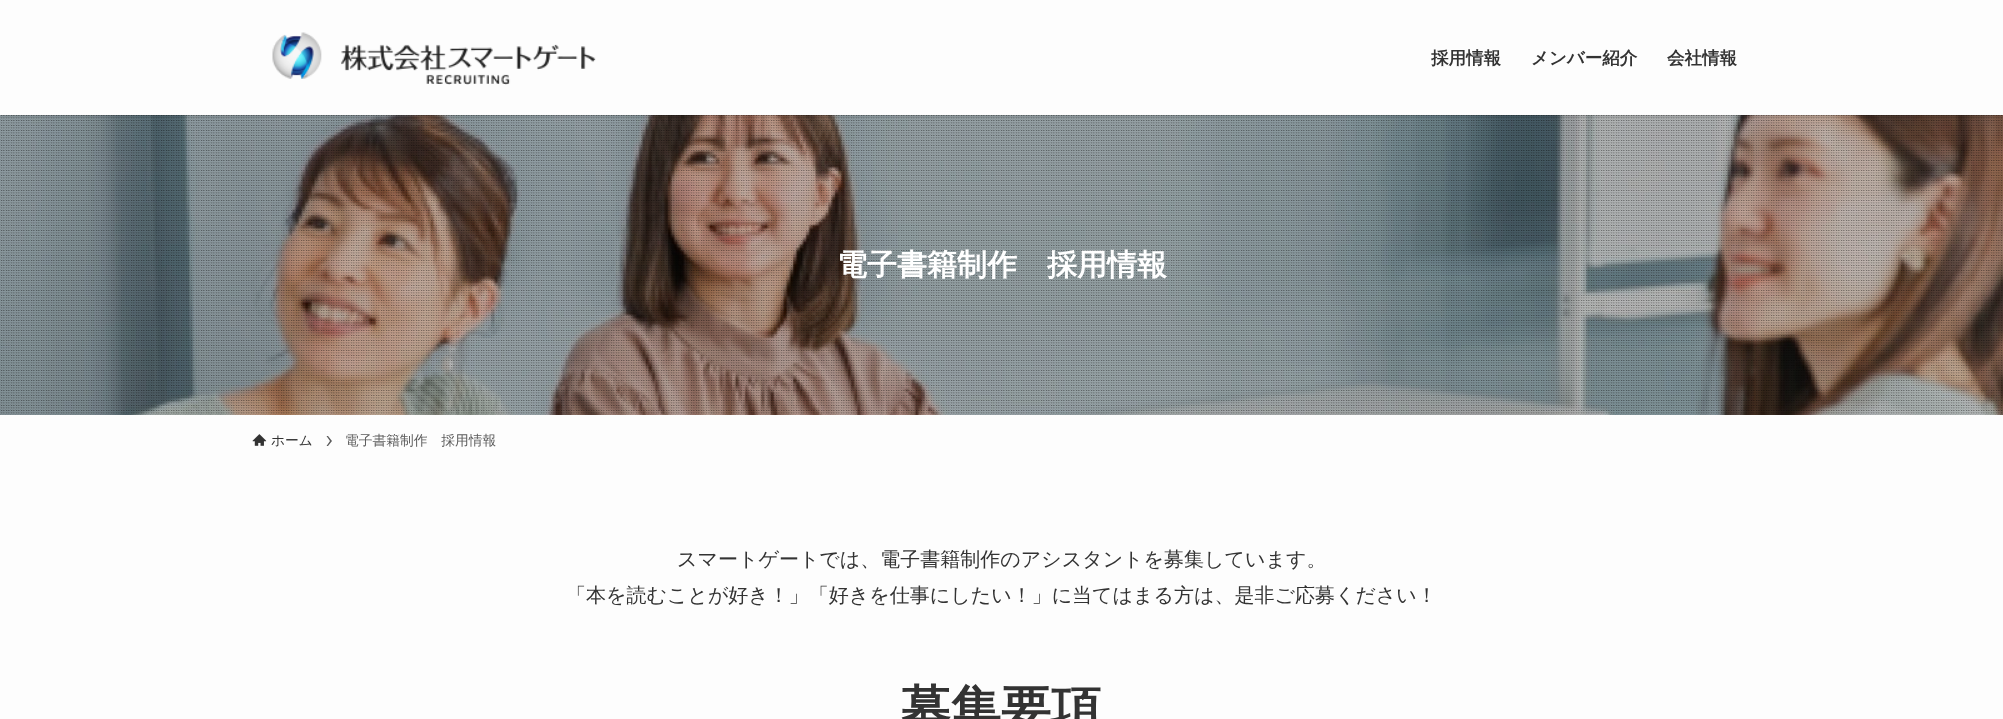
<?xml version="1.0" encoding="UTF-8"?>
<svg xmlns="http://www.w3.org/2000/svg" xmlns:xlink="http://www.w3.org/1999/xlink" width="2003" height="719">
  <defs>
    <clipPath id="clip1"><rect x="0" y="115" width="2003" height="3" /></clipPath>
  </defs>
  <rect width="100%" height="100%" fill="#fdfdfd" />
  <image x="0" y="115" width="2003" height="300" xlink:href="image2.png" />
  <image x="0" y="115" width="2003" height="300" xlink:href="image3.png" />
  <g clip-path="url(#clip1)">
    <rect y="1" width="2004" height="115" fill="#000000" fill-opacity="0.12" filter="blur(2.5px)" />
  </g>
  <image x="272" y="32" width="324" height="53" xlink:href="image1.png" />
  <image x="252" y="434" width="15" height="12" xlink:href="image4.png" />
  <path d="M 328 436 h -1.5 l 3.5 5 l -3.5 5 h 1.5 l 4 -5 z" fill="#5b5b5b" />
  <text x="1431" y="64" style="font-family: WenQuanYi Zen Hei; font-size: 17.5px; font-weight: bold; fill: #333333">採用情報</text>
  <text x="1531" y="64" style="font-family: WenQuanYi Zen Hei; font-size: 17.5px; font-weight: bold; fill: #333333">メンバー紹介</text>
  <text x="1667" y="64" style="font-family: WenQuanYi Zen Hei; font-size: 17.5px; font-weight: bold; fill: #333333">会社情報</text>
  <text x="837" y="275" style="font-family: WenQuanYi Zen Hei; font-size: 30px; font-weight: bold; fill: #ffffff">電子書籍制作　採用情報</text>
  <text x="271" y="445" style="font-family: WenQuanYi Zen Hei; font-size: 13.75px; font-weight: 500; fill: #333333">ホーム</text>
  <text x="345" y="445" style="font-family: WenQuanYi Zen Hei; font-size: 13.75px; font-weight: 500; fill: #5b5b5b">電子書籍制作　採用情報</text>
  <text x="677" y="566" style="font-family: WenQuanYi Zen Hei; font-size: 20px; font-weight: 500; fill: #333333">スマートゲートでは、電子書籍制作のアシスタントを募集しています。</text>
  <text x="566" y="602" style="font-family: WenQuanYi Zen Hei; font-size: 20px; font-weight: 500; fill: #333333">「本を読むことが好き！」「好きを仕事にしたい！」に当てはまる方は、是非ご応募ください！</text>
  <text x="901" y="726" style="font-family: WenQuanYi Zen Hei; font-size: 50px; font-weight: bold; fill: #333333">募集要項</text>
</svg>
